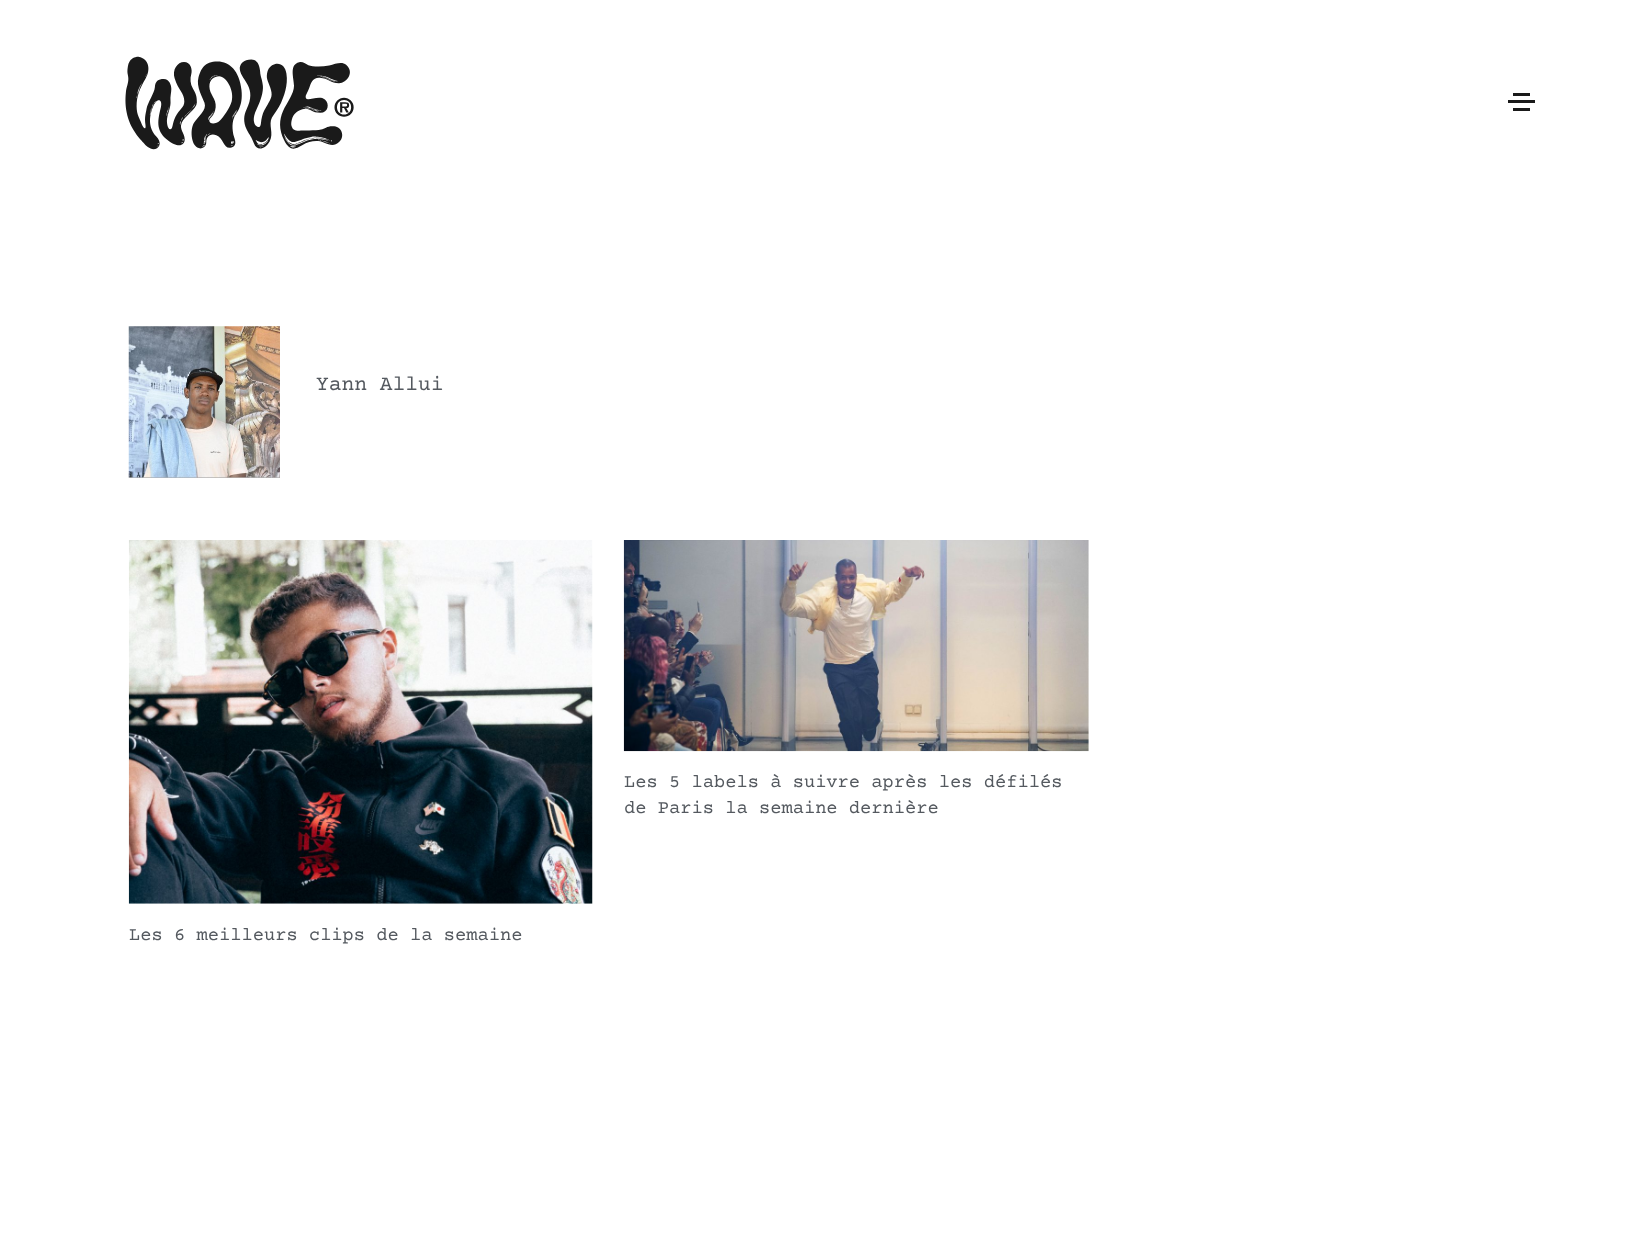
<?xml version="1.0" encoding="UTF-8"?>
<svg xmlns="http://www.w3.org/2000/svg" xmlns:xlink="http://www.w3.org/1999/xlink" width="1644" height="1244">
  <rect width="100%" height="100%" fill="#ffffff" />
  <image x="125" y="56" width="229" height="94" xlink:href="image1.png" />
  <rect x="1513" y="93" width="17" height="3" fill="#1a1a1a" />
  <rect x="1508" y="100" width="27" height="3" fill="#1a1a1a" />
  <rect x="1513" y="108" width="17" height="3" fill="#1a1a1a" />
  <image x="128" y="326" width="152" height="152" xlink:href="image2.png" />
  <image x="623" y="540" width="466" height="212" xlink:href="image3.png" />
  <image x="128" y="540" width="465" height="364" xlink:href="image4.png" />
  <text x="316" y="390" style="font-family: Courier Prime; font-size: 21.25px; fill: #54595f">Yann Allui</text>
  <text x="624" y="787" style="font-family: Courier Prime; font-size: 18.75px; fill: #54595f">Les 5 labels à suivre après les défilés</text>
  <text x="624" y="813" style="font-family: Courier Prime; font-size: 18.75px; fill: #54595f">de Paris la semaine dernière</text>
  <text x="129" y="940" style="font-family: Courier Prime; font-size: 18.75px; fill: #54595f">Les 6 meilleurs clips de la semaine</text>
</svg>
